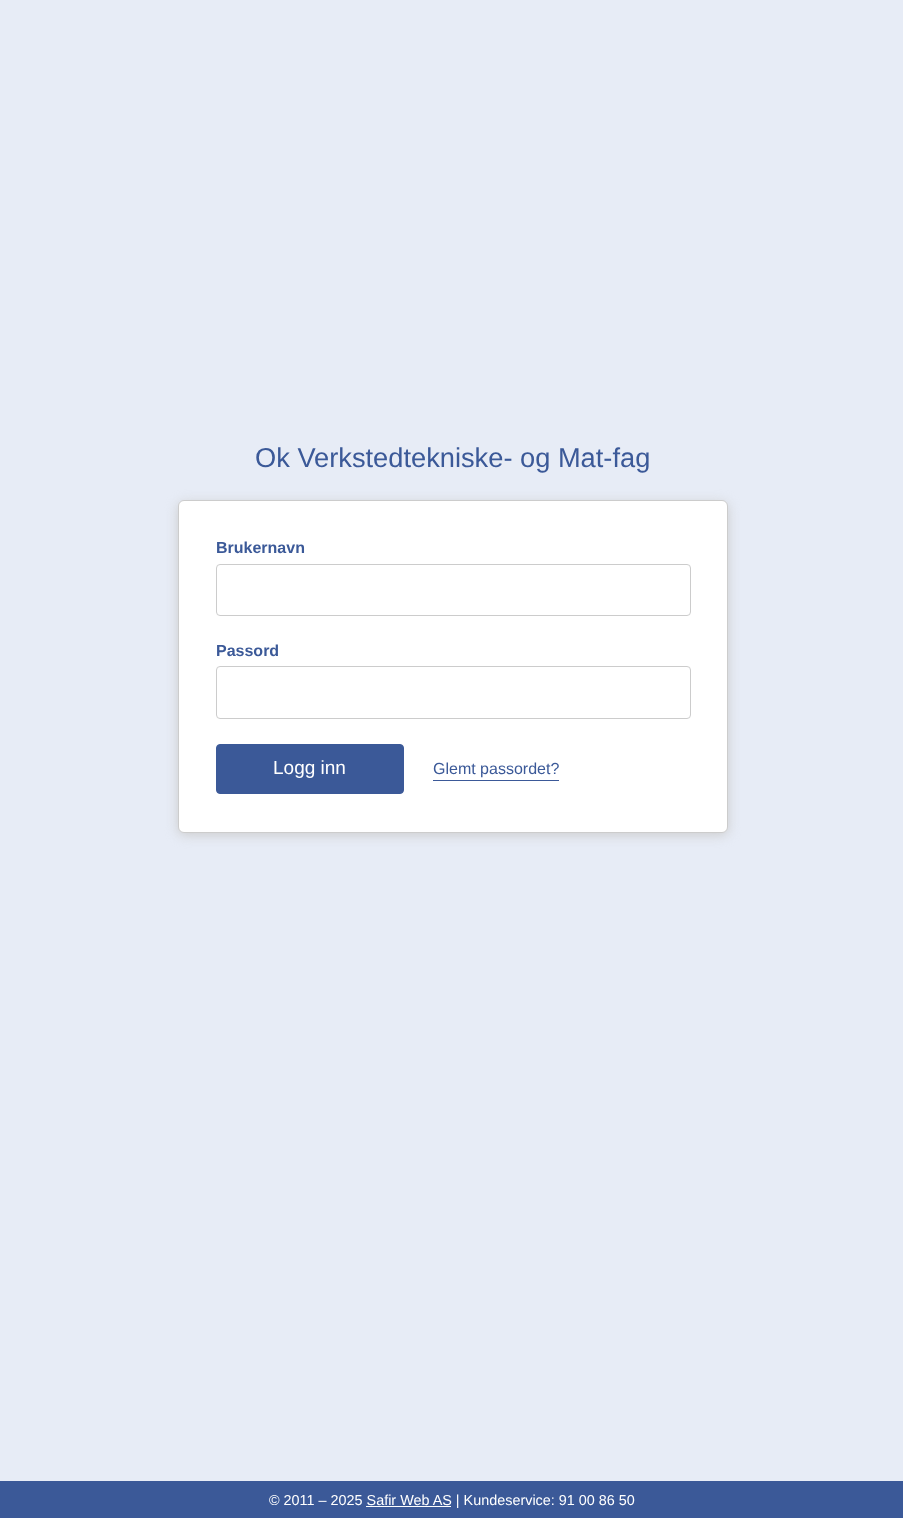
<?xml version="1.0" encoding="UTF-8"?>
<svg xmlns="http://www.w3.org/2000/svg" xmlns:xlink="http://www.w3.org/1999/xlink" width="903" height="1518">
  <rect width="100%" height="100%" fill="#e7ecf6" />
  <rect x="178" y="503" width="550" height="332" rx="6" fill="#cccccc" filter="blur(6px)" />
  <rect x="178.5" y="500.5" width="549" height="332" rx="5.5" fill="#ffffff" stroke="#cccccc" />
  <rect x="216.5" y="564.5" width="474" height="51" rx="3.5" fill="none" stroke="#cccccc" />
  <rect x="216.5" y="666.5" width="474" height="52" rx="3.5" fill="none" stroke="#cccccc" />
  <rect x="216.5" y="744.5" width="187" height="49" rx="3.5" fill="#3b5998" stroke="#3b5998" />
  <rect x="433" y="780" width="126" height="1" fill="#3b5998" />
  <rect y="1481" width="903" height="37" fill="#3b5998" />
  <rect x="366" y="1506" width="85" height="1" fill="#ffffff" />
  <text x="255" y="467" style="font-family: Liberation Sans; font-size: 27.25px; fill: #3b5998">Ok Verkstedtekniske- og Mat-fag</text>
  <text x="216" y="553" style="font-family: Liberation Sans; font-size: 16px; font-weight: bold; fill: #3b5998">Brukernavn</text>
  <text x="216" y="656" style="font-family: Liberation Sans; font-size: 16px; font-weight: bold; fill: #3b5998">Passord</text>
  <text x="273" y="774" style="font-family: Liberation Sans; font-size: 19px; fill: #ffffff">Logg inn</text>
  <text x="433" y="774" style="font-family: Liberation Sans; font-size: 16px; fill: #3b5998">Glemt passordet?</text>
  <text x="269" y="1505" style="font-family: Liberation Sans; font-size: 14.4px; fill: #ffffff">© 2011 – 2025 Safir Web AS | Kundeservice: 91 00 86 50</text>
</svg>
